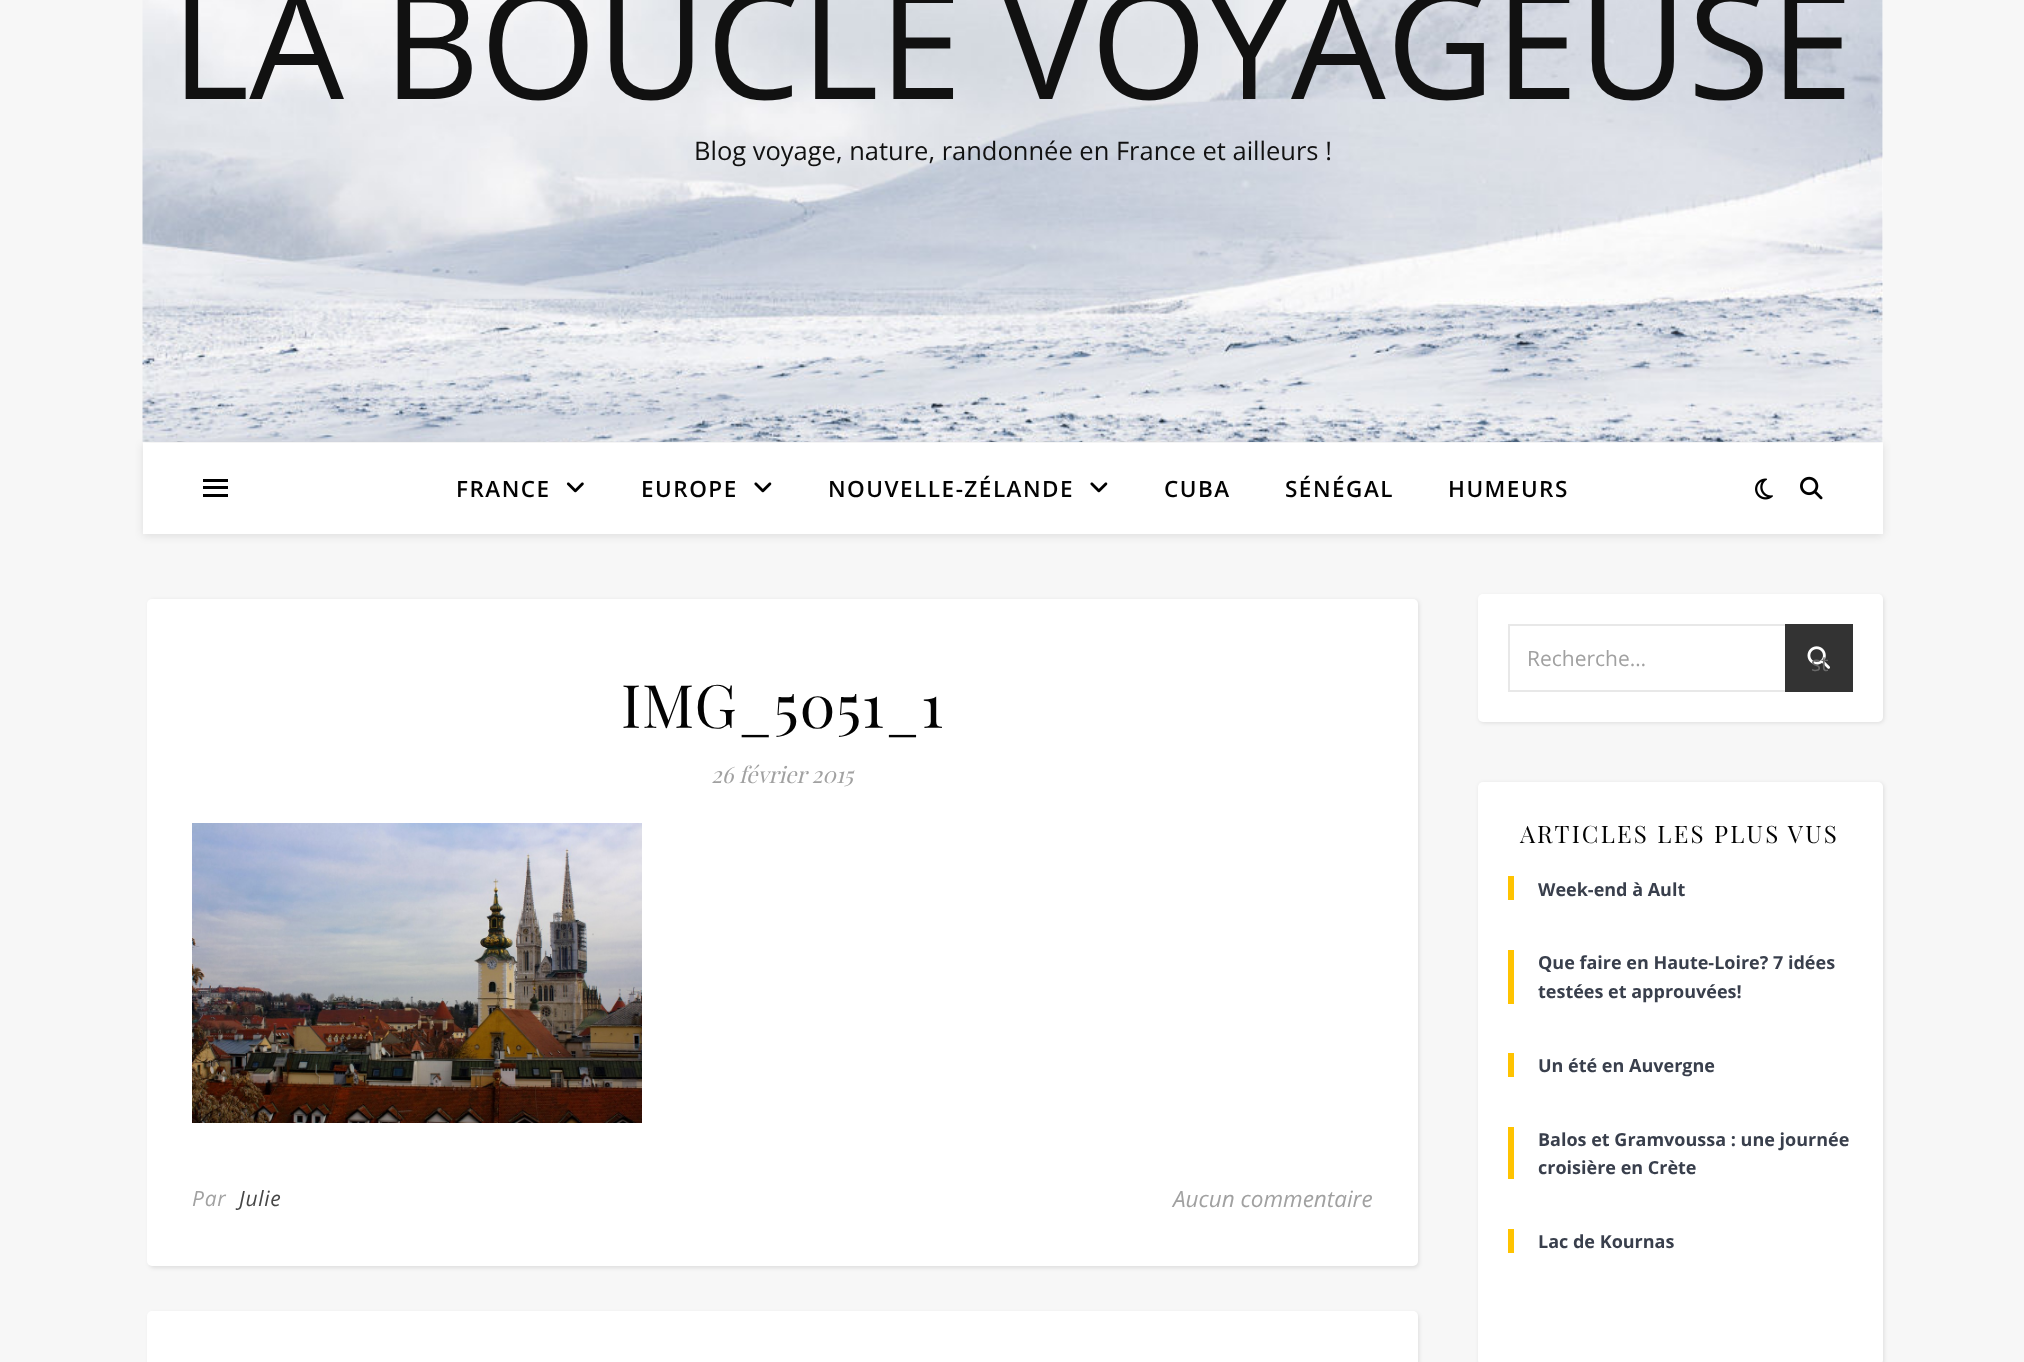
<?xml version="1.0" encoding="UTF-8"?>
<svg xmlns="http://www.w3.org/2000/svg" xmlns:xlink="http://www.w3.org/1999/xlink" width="2024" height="1362">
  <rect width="100%" height="100%" fill="#f7f7f7" />
  <rect x="143" width="1740" height="443" fill="#ffffff" />
  <image x="142" y="0" width="1741" height="442" xlink:href="image1.png" />
  <rect x="143" y="444" width="1740" height="92" fill="#000000" fill-opacity="0.1" filter="blur(4px)" />
  <rect x="143" y="443" width="1740" height="91" fill="#ffffff" />
  <rect x="203" y="479" width="25" height="3" fill="#000000" />
  <rect x="203" y="486" width="25" height="3" fill="#000000" />
  <rect x="203" y="494" width="25" height="3" fill="#000000" />
  <image x="566" y="482" width="18" height="11" xlink:href="image2.png" />
  <image x="754" y="482" width="18" height="11" xlink:href="image3.png" />
  <image x="1090" y="482" width="18" height="11" xlink:href="image3.png" />
  <image x="1755" y="478" width="18" height="22" xlink:href="image4.png" />
  <image x="1800" y="476" width="23" height="24" xlink:href="image5.png" />
  <rect x="149" y="600" width="1270" height="668" rx="5" fill="#000000" fill-opacity="0.1" filter="blur(2px)" />
  <rect x="147" y="599" width="1271" height="667" rx="5" fill="#ffffff" />
  <image x="192" y="823" width="450" height="300" xlink:href="image6.png" />
  <rect x="149" y="1313" width="1270" height="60" rx="5" fill="#000000" fill-opacity="0.1" filter="blur(2px)" />
  <rect x="147" y="1311" width="1271" height="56" rx="5" fill="#ffffff" />
  <rect x="1479" y="596" width="405" height="127" rx="5" fill="#000000" fill-opacity="0.1" filter="blur(2px)" />
  <rect x="1478" y="594" width="405" height="128" rx="5" fill="#ffffff" />
  <rect x="1509" y="625" width="343" height="66" fill="none" stroke="#e8e8e8" stroke-width="2" />
  <rect x="1785" y="624" width="68" height="68" fill="#333333" />
  <image x="1807" y="646" width="23" height="23" xlink:href="image7.png" />
  <rect x="1479" y="783" width="405" height="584" rx="5" fill="#000000" fill-opacity="0.1" filter="blur(2px)" />
  <rect x="1478" y="782" width="405" height="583" rx="5" fill="#ffffff" />
  <rect x="1508" y="876" width="6" height="24" fill="#ffc300" />
  <rect x="1508" y="950" width="6" height="54" fill="#ffc300" />
  <rect x="1508" y="1053" width="6" height="24" fill="#ffc300" />
  <rect x="1508" y="1127" width="6" height="52" fill="#ffc300" />
  <rect x="1508" y="1229" width="6" height="24" fill="#ffc300" />
  <text x="171" y="99" style="font-family: Open Sans; font-size: 150px; fill: #111111">LA BOUCLE VOYAGEUSE</text>
  <text x="694" y="160" style="font-family: Open Sans; font-size: 25.5px; fill: #111111">Blog voyage, nature, randonnée en France et ailleurs !</text>
  <text x="456" y="497" style="font-family: Open Sans; font-size: 22.5px; font-weight: 600; letter-spacing: 1.5px; fill: #030303">FRANCE</text>
  <text x="641" y="497" style="font-family: Open Sans; font-size: 22.5px; font-weight: 600; letter-spacing: 1.5px; fill: #030303">EUROPE</text>
  <text x="828" y="497" style="font-family: Open Sans; font-size: 22.5px; font-weight: 600; letter-spacing: 1.5px; fill: #030303">NOUVELLE-ZÉLANDE</text>
  <text x="1164" y="497" style="font-family: Open Sans; font-size: 22.5px; font-weight: 600; letter-spacing: 1.5px; fill: #030303">CUBA</text>
  <text x="1285" y="497" style="font-family: Open Sans; font-size: 22.5px; font-weight: 600; letter-spacing: 1.5px; fill: #030303">SÉNÉGAL</text>
  <text x="1448" y="497" style="font-family: Open Sans; font-size: 22.5px; font-weight: 600; letter-spacing: 1.5px; fill: #030303">HUMEURS</text>
  <text x="621" y="728" style="font-family: Playfair Display; font-size: 60px; letter-spacing: 0.75px; fill: #030303">IMG_5051_1</text>
  <text x="711" y="783" style="font-family: Playfair Display; font-size: 22.5px; font-style: italic; fill: #a1a1a1">26 février 2015</text>
  <text x="192" y="1206" style="font-family: Open Sans; font-size: 21px; font-style: italic; letter-spacing: 0.75px; fill: #a1a1a1">Par</text>
  <text x="239" y="1206" style="font-family: Open Sans; font-size: 21px; font-style: italic; letter-spacing: 0.75px; fill: #464646">Julie</text>
  <text x="1173" y="1207" style="font-family: Open Sans; font-size: 22.5px; font-style: italic; fill: #a1a1a1">Aucun commentaire</text>
  <text x="1527" y="666" style="font-family: Open Sans; font-size: 21px; fill: #a1a1a1">Recherche…</text>
  <text x="1811" y="671" style="font-family: Open Sans; font-size: 21px; fill: #6a6a6a">st</text>
  <text x="1520" y="843" style="font-family: Playfair Display; font-size: 24px; letter-spacing: 2.25px; fill: #030303">ARTICLES LES PLUS VUS</text>
  <text x="1538" y="896" style="font-family: Open Sans; font-size: 18px; font-weight: bold; fill: #393f4c">Week-end à Ault</text>
  <text x="1538" y="969" style="font-family: Open Sans; font-size: 18px; font-weight: bold; fill: #393f4c">Que faire en Haute-Loire? 7 idées</text>
  <text x="1538" y="998" style="font-family: Open Sans; font-size: 18px; font-weight: bold; fill: #393f4c">testées et approuvées!</text>
  <text x="1538" y="1072" style="font-family: Open Sans; font-size: 18px; font-weight: bold; fill: #393f4c">Un été en Auvergne</text>
  <text x="1538" y="1146" style="font-family: Open Sans; font-size: 18px; font-weight: bold; fill: #393f4c">Balos et Gramvoussa : une journée</text>
  <text x="1538" y="1174" style="font-family: Open Sans; font-size: 18px; font-weight: bold; fill: #393f4c">croisière en Crète</text>
  <text x="1538" y="1248" style="font-family: Open Sans; font-size: 18px; font-weight: bold; fill: #393f4c">Lac de Kournas</text>
</svg>
